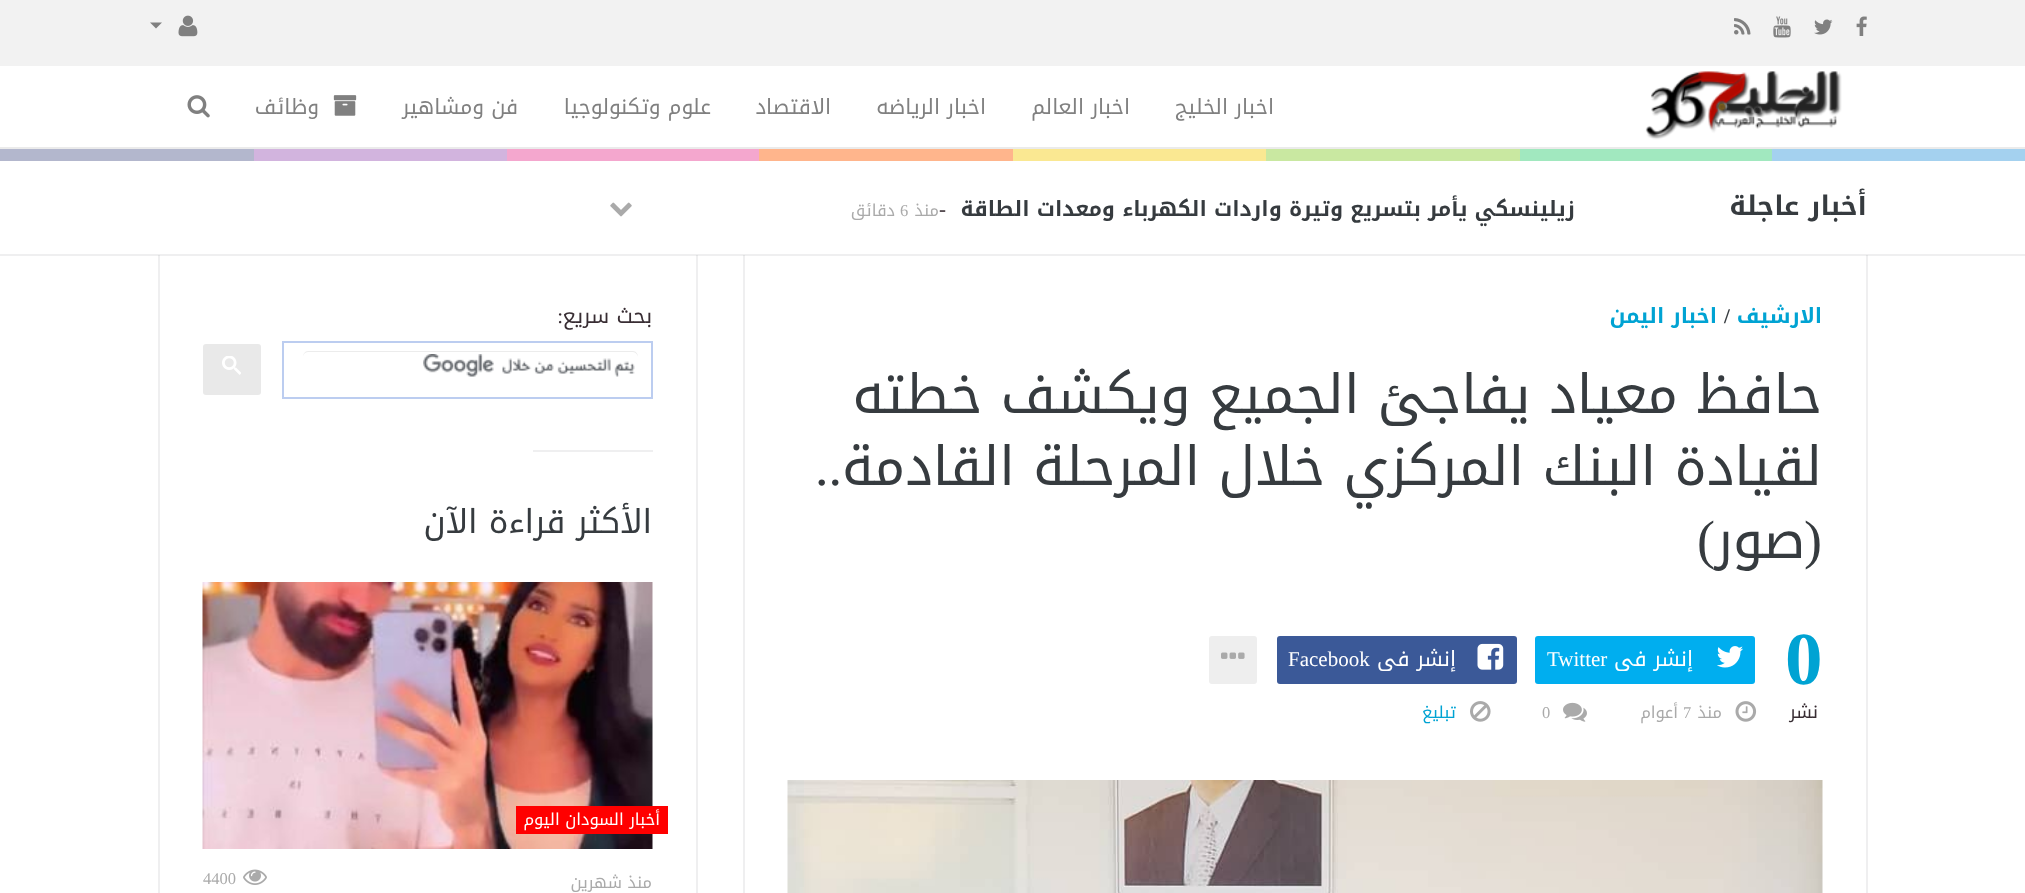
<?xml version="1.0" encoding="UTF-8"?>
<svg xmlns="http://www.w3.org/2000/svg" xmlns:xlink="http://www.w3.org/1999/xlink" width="2025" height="893">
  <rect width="100%" height="100%" fill="#ffffff" />
  <rect x="158" y="255" width="2" height="638" fill="#efeff0" />
  <rect x="696" y="255" width="2" height="638" fill="#efeff0" />
  <rect x="743" y="255" width="2" height="638" fill="#efeff0" />
  <rect x="1866" y="255" width="2" height="638" fill="#efeff0" />
  <rect width="2025" height="66" fill="#f2f2f2" />
  <image x="1856" y="16" width="11" height="20" xlink:href="image1.png" />
  <image x="1814" y="19" width="19" height="16" xlink:href="image2.png" />
  <image x="1773" y="16" width="18" height="22" xlink:href="image3.png" />
  <image x="1734" y="18" width="17" height="17" xlink:href="image4.png" />
  <image x="178" y="15" width="20" height="22" xlink:href="image5.png" />
  <path d="M 150 22.5 h 12 l -6 6 z" fill="#808080" />
  <rect y="147" width="2025" height="2" fill="#ebebeb" />
  <image x="1645" y="71" width="197" height="69" xlink:href="image6.png" />
  <image x="333" y="95" width="24" height="21" xlink:href="image7.png" />
  <image x="187" y="95" width="23" height="23" xlink:href="image8.png" />
  <rect x="1772" y="149" width="253" height="12" fill="#a4d1ef" />
  <rect x="1520" y="149" width="252" height="12" fill="#a1e8bf" />
  <rect x="1266" y="149" width="254" height="12" fill="#c9e8a1" />
  <rect x="1013" y="149" width="253" height="12" fill="#fae892" />
  <rect x="759" y="149" width="254" height="12" fill="#ffb58c" />
  <rect x="507" y="149" width="252" height="12" fill="#f4a7ce" />
  <rect x="254" y="149" width="253" height="12" fill="#d2b4de" />
  <rect y="149" width="254" height="12" fill="#b3b7cd" />
  <rect y="254" width="2025" height="2" fill="#efeff0" />
  <rect x="158" y="255" width="2" height="1" fill="#e0e1e2" />
  <rect x="696" y="255" width="2" height="1" fill="#e0e1e2" />
  <rect x="743" y="255" width="2" height="1" fill="#e0e1e2" />
  <rect x="1866" y="255" width="2" height="1" fill="#e0e1e2" />
  <image x="610" y="202" width="22" height="15" xlink:href="image9.png" />
  <rect x="1535" y="636" width="220" height="48" rx="3" fill="#00aeef" />
  <image x="1717" y="646" width="26" height="22" xlink:href="image10.png" />
  <rect x="1277" y="636" width="240" height="48" rx="3" fill="#3b5998" />
  <image x="1477" y="643" width="27" height="27" xlink:href="image11.png" />
  <rect x="1209" y="636" width="48" height="48" rx="3" fill="#eeeeee" />
  <image x="1221" y="652" width="24" height="7" xlink:href="image12.png" />
  <image x="1735" y="701" width="22" height="21" xlink:href="image13.png" />
  <image x="1563" y="702" width="24" height="20" xlink:href="image14.png" />
  <image x="1470" y="701" width="21" height="21" xlink:href="image15.png" />
  <image x="787" y="780" width="1036" height="113" xlink:href="image16.png" />
  <rect x="283" y="342" width="369" height="56" fill="none" stroke="#bccdf0" stroke-width="2" />
  <image x="423" y="354" width="212" height="23" xlink:href="image17.png" />
  <path d="M 308 352 h 325 c 2 0 5 3 5 5 c 0 -3 -2 -6 -5 -6 h -325 c -3 0 -5 3 -5 6 c 0 -2 2 -5 5 -5 z" fill="#ececec" />
  <rect x="203" y="344" width="58" height="51" rx="3" fill="#e9e9e9" />
  <image x="222" y="356" width="19" height="19" xlink:href="image18.png" />
  <rect x="533" y="450" width="120" height="2" fill="#efeff0" />
  <image x="202" y="582" width="451" height="267" xlink:href="image19.png" />
  <rect x="516" y="806" width="152" height="28" fill="#ff0000" />
  <image x="243" y="869" width="24" height="16" xlink:href="image20.png" />
  <text x="1274" y="114" style="font-family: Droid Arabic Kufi; font-size: 21px; direction: rtl; fill: #808080">اخبار الخليج</text>
  <text x="1130" y="114" style="font-family: Droid Arabic Kufi; font-size: 21px; direction: rtl; fill: #808080">اخبار العالم</text>
  <text x="986" y="114" style="font-family: Droid Arabic Kufi; font-size: 21px; direction: rtl; fill: #808080">اخبار الرياضه</text>
  <text x="831" y="114" style="font-family: Droid Arabic Kufi; font-size: 21px; direction: rtl; fill: #808080">الاقتصاد</text>
  <text x="711" y="114" style="font-family: Droid Arabic Kufi; font-size: 21px; direction: rtl; fill: #808080">علوم وتكنولوجيا</text>
  <text x="518" y="114" style="font-family: Droid Arabic Kufi; font-size: 21px; direction: rtl; fill: #808080">فن ومشاهير</text>
  <text x="319" y="114" style="font-family: Droid Arabic Kufi; font-size: 21px; direction: rtl; fill: #808080">وظائف</text>
  <text x="1867" y="215" style="font-family: Droid Arabic Kufi; font-size: 27px; font-weight: bold; direction: rtl; fill: #363b3f">أخبار عاجلة</text>
  <text x="1575" y="216" style="font-family: Droid Arabic Kufi; font-size: 21px; font-weight: bold; direction: rtl; fill: #363b3f">زيلينسكي يأمر بتسريع وتيرة واردات الكهرباء ومعدات الطاقة</text>
  <text x="939" y="216" style="font-family: Liberation Serif; font-size: 21px; fill: #382d33">-</text>
  <text x="939" y="216" style="font-family: Droid Arabic Kufi; font-size: 16.5px; direction: rtl; fill: #aaaaaa">منذ</text>
  <text x="900" y="216" style="font-family: Liberation Serif; font-size: 16.5px; fill: #aaaaaa">6</text>
  <text x="895" y="216" style="font-family: Droid Arabic Kufi; font-size: 16.5px; direction: rtl; fill: #aaaaaa">دقائق</text>
  <text x="1822" y="323" style="font-family: Droid Arabic Kufi; font-size: 21px; font-weight: bold; direction: rtl; fill: #00a3d3">الارشيف</text>
  <text x="1724" y="323" style="font-family: Liberation Serif; font-size: 21px; font-weight: bold; fill: #363b3f">/</text>
  <text x="1717" y="323" style="font-family: Droid Arabic Kufi; font-size: 21px; font-weight: bold; direction: rtl; fill: #00a3d3">اخبار اليمن</text>
  <text x="1822" y="413" style="font-family: Droid Arabic Kufi; font-size: 54px; direction: rtl; fill: #363b3f">حافظ معياد يفاجئ الجميع ويكشف خطته</text>
  <text x="1822" y="485" style="font-family: Droid Arabic Kufi; font-size: 54px; direction: rtl; fill: #363b3f">لقيادة البنك المركزي خلال المرحلة القادمة</text>
  <text x="842" y="485" style="font-family: Liberation Serif; font-size: 54px; direction: rtl; fill: #363b3f">..</text>
  <text x="1822" y="558" style="font-family: Liberation Serif; font-size: 54px; direction: rtl; fill: #363b3f">(</text>
  <text x="1715" y="558" style="font-family: Liberation Serif; font-size: 54px; direction: rtl; fill: #363b3f">)</text>
  <text x="1805" y="558" style="font-family: Droid Arabic Kufi; font-size: 54px; direction: rtl; fill: #363b3f">صور</text>
  <text x="1785" y="684" style="font-family: Liberation Serif; font-size: 75px; font-weight: bold; fill: #00a3d3">0</text>
  <text x="1818" y="718" style="font-family: Droid Arabic Kufi; font-size: 18px; direction: rtl; fill: #382d33">نشر</text>
  <text x="1693" y="666" style="font-family: Droid Arabic Kufi; font-size: 21px; direction: rtl; fill: #ffffff">إنشر فى</text>
  <text x="1547" y="666" style="font-family: Liberation Serif; font-size: 21px; fill: #ffffff">Twitter</text>
  <text x="1456" y="666" style="font-family: Droid Arabic Kufi; font-size: 21px; direction: rtl; fill: #ffffff">إنشر فى</text>
  <text x="1288" y="666" style="font-family: Liberation Serif; font-size: 21px; fill: #ffffff">Facebook</text>
  <text x="1722" y="718" style="font-family: Droid Arabic Kufi; font-size: 16.5px; direction: rtl; fill: #aaaaaa">منذ</text>
  <text x="1683" y="718" style="font-family: Liberation Serif; font-size: 16.5px; fill: #aaaaaa">7</text>
  <text x="1678" y="718" style="font-family: Droid Arabic Kufi; font-size: 16.5px; direction: rtl; fill: #aaaaaa">أعوام</text>
  <text x="1542" y="718" style="font-family: Liberation Serif; font-size: 16.5px; fill: #aaaaaa">0</text>
  <text x="1456" y="718" style="font-family: Droid Arabic Kufi; font-size: 16.5px; direction: rtl; fill: #00a3d3">تبليغ</text>
  <text x="652" y="323" style="font-family: Droid Arabic Kufi; font-size: 21px; direction: rtl; fill: #382d33">بحث سريع</text>
  <text x="563" y="323" style="font-family: Liberation Serif; font-size: 21px; direction: rtl; fill: #382d33">:</text>
  <text x="652" y="533" style="font-family: Droid Arabic Kufi; font-size: 33px; direction: rtl; fill: #363b3f">الأكثر قراءة الآن</text>
  <text x="660" y="825" style="font-family: Droid Arabic Kufi; font-size: 16.5px; direction: rtl; fill: #ffffff">أخبار السودان اليوم</text>
  <text x="652" y="888" style="font-family: Droid Arabic Kufi; font-size: 16.5px; direction: rtl; fill: #aaaaaa">منذ شهرين</text>
  <text x="203" y="884" style="font-family: Liberation Serif; font-size: 16.5px; fill: #aaaaaa">4400</text>
</svg>
